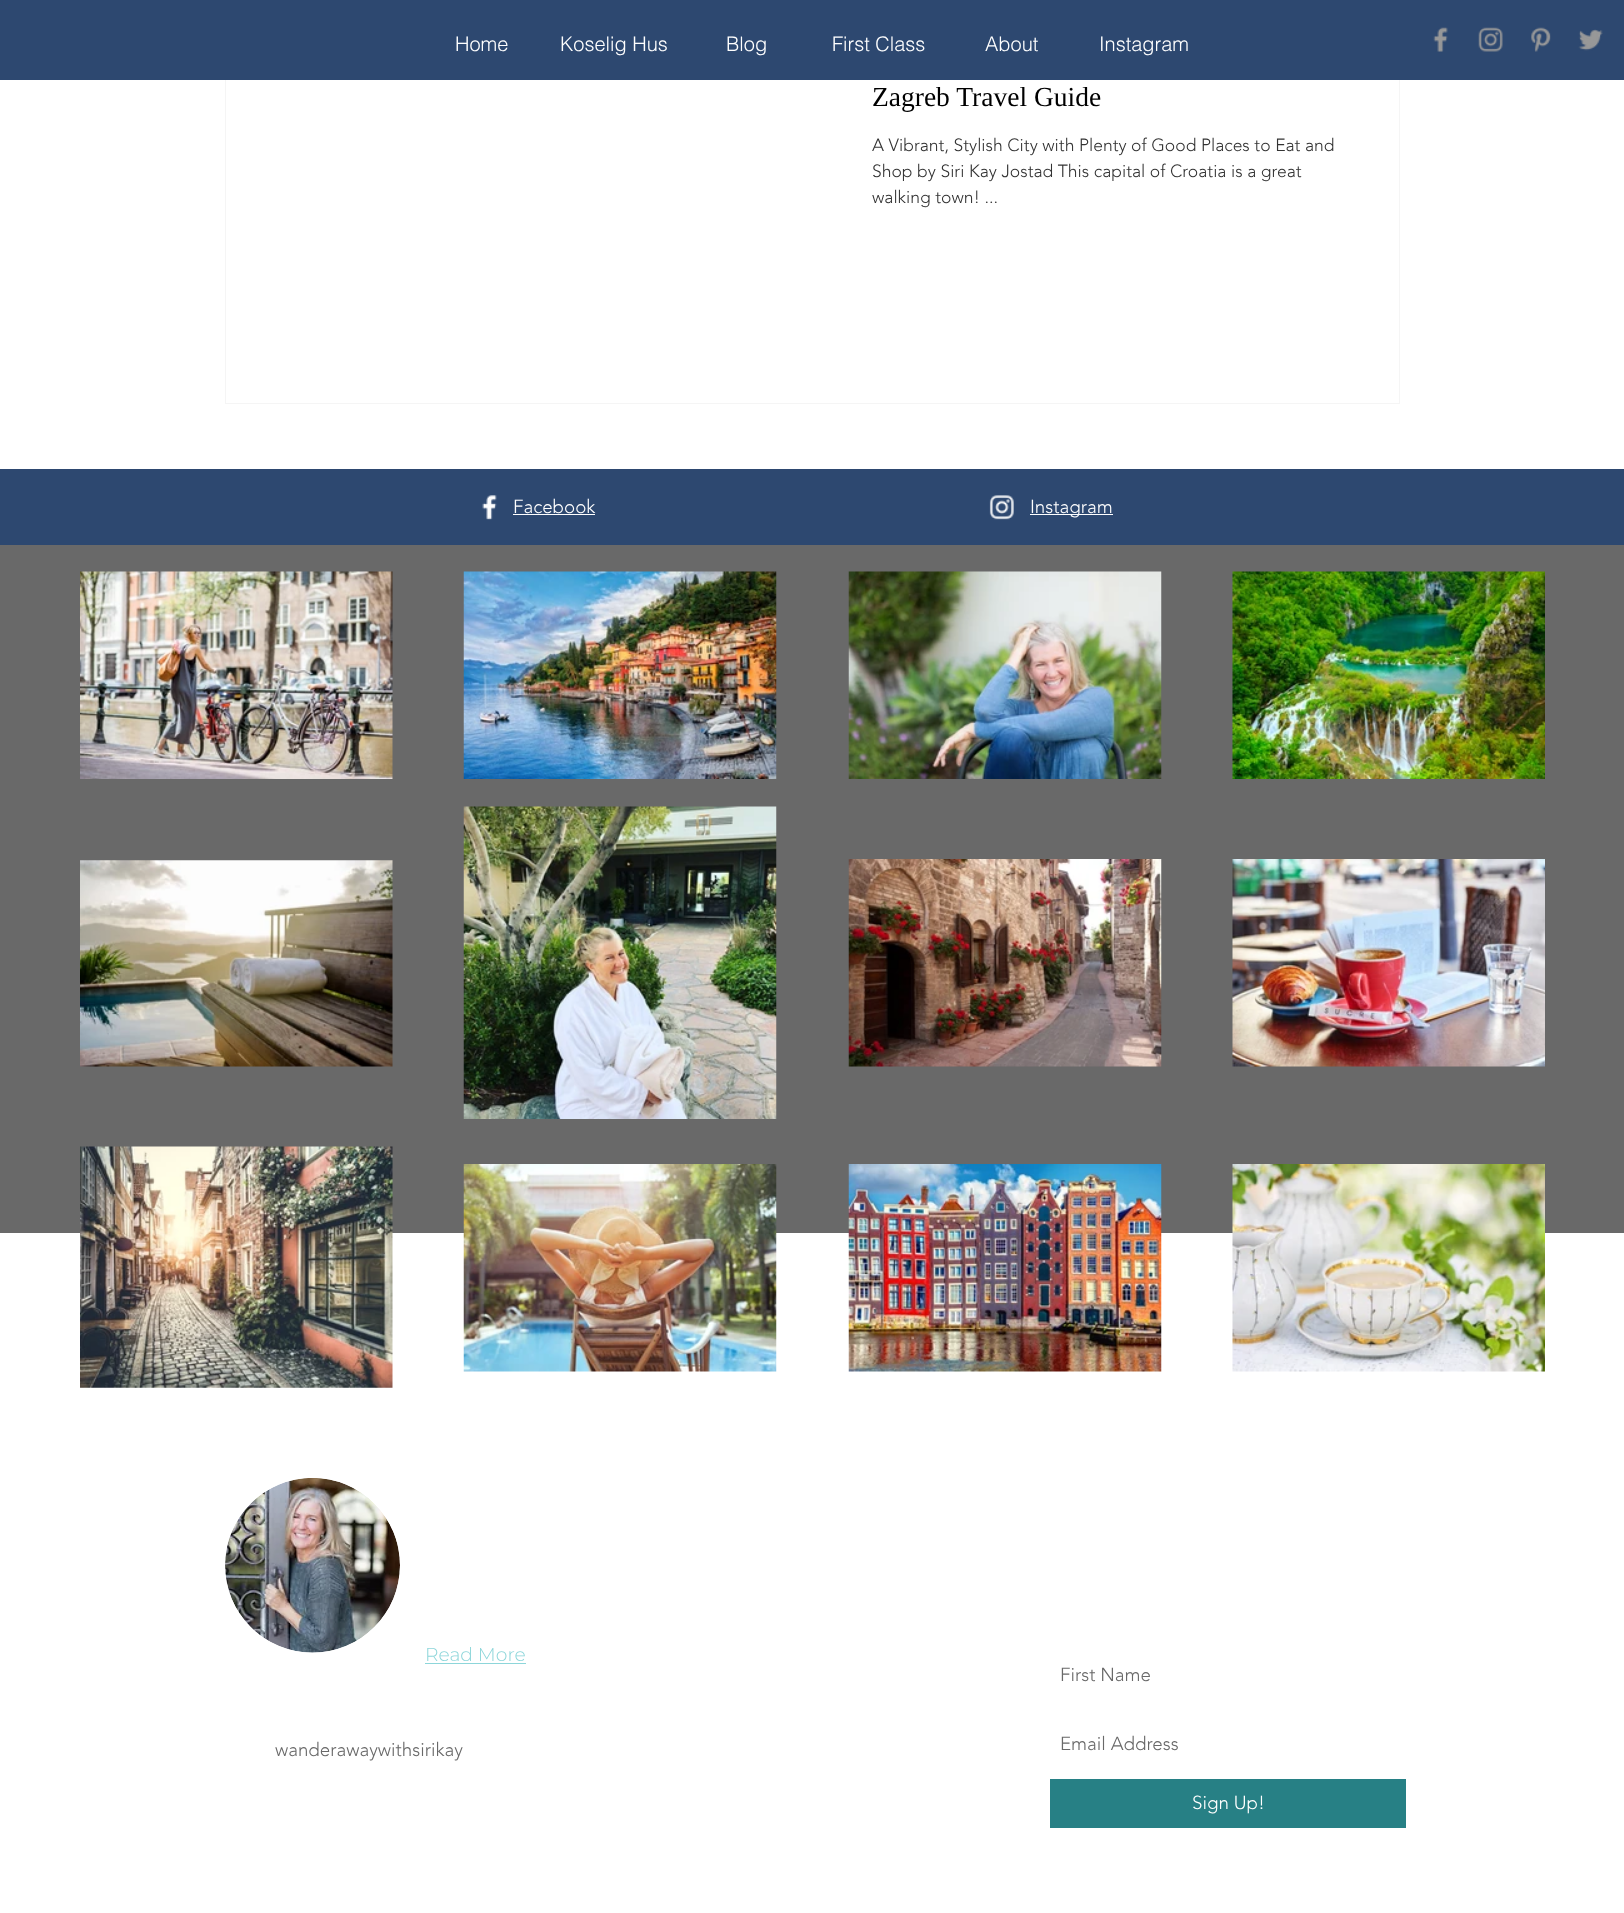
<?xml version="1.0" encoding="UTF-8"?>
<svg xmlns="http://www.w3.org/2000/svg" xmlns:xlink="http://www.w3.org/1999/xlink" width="1624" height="1913">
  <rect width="100%" height="100%" fill="#ffffff" />
  <rect x="225.5" y="-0.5" width="1174" height="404" fill="none" stroke="#f5f5f5" />
  <rect width="1624" height="80" fill="#2d4870" />
  <image x="1433" y="27" width="15" height="25" xlink:href="image1.png" />
  <image x="1478" y="27" width="25" height="25" xlink:href="image2.png" />
  <image x="1531" y="27" width="20" height="25" xlink:href="image3.png" />
  <image x="1578" y="29" width="25" height="22" xlink:href="image4.png" />
  <rect y="469" width="1624" height="76" fill="#2d4870" />
  <image x="482" y="495" width="15" height="25" xlink:href="image5.png" />
  <rect x="513" y="514" width="82" height="1" fill="#ffffff" />
  <image x="989" y="495" width="25" height="25" xlink:href="image6.png" />
  <rect x="1030" y="514" width="83" height="1" fill="#ffffff" />
  <rect y="545" width="1624" height="688" fill="#696969" />
  <image x="80" y="571" width="313" height="208" xlink:href="image7.png" />
  <image x="463" y="571" width="314" height="208" xlink:href="image8.png" />
  <image x="848" y="571" width="314" height="208" xlink:href="image9.png" />
  <image x="1232" y="571" width="313" height="208" xlink:href="image10.png" />
  <image x="80" y="860" width="313" height="207" xlink:href="image11.png" />
  <image x="463" y="806" width="314" height="313" xlink:href="image12.png" />
  <image x="848" y="859" width="314" height="208" xlink:href="image13.png" />
  <image x="1232" y="859" width="313" height="208" xlink:href="image14.png" />
  <image x="80" y="1146" width="313" height="242" xlink:href="image15.png" />
  <image x="463" y="1164" width="314" height="208" xlink:href="image16.png" />
  <image x="848" y="1164" width="314" height="208" xlink:href="image17.png" />
  <image x="1232" y="1164" width="313" height="208" xlink:href="image18.png" />
  <image x="225" y="1478" width="175" height="175" xlink:href="image19.png" />
  <rect x="425" y="1663" width="101" height="1" fill="#8dd6da" />
  <rect x="1050" y="1779" width="356" height="49" fill="#278085" />
  <text x="455" y="51" style="font-family: helvetica; font-size: 20px; font-weight: 300; fill: #ffffff">Home</text>
  <text x="560" y="51" style="font-family: helvetica; font-size: 20px; font-weight: 300; fill: #ffffff">Koselig Hus</text>
  <text x="726" y="51" style="font-family: helvetica; font-size: 20px; font-weight: 300; fill: #ffffff">Blog</text>
  <text x="832" y="51" style="font-family: helvetica; font-size: 20px; font-weight: 300; fill: #ffffff">First Class</text>
  <text x="985" y="51" style="font-family: helvetica; font-size: 20px; font-weight: 300; fill: #ffffff">About</text>
  <text x="1099" y="51" style="font-family: helvetica; font-size: 20px; font-weight: 300; fill: #ffffff">Instagram</text>
  <text x="872" y="106" style="font-family: Liberation Serif; font-size: 27.5px; fill: #000000">Zagreb Travel Guide</text>
  <text x="872" y="151" style="font-family: 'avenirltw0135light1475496'; font-size: 17.5px; font-weight: 300; fill: #333333">A Vibrant, Stylish City with Plenty of Good Places to Eat and</text>
  <text x="872" y="177" style="font-family: 'avenirltw0135light1475496'; font-size: 17.5px; font-weight: 300; fill: #333333">Shop by Siri Kay Jostad This capital of Croatia is a great</text>
  <text x="872" y="203" style="font-family: 'avenirltw0135light1475496'; font-size: 17.5px; font-weight: 300; fill: #333333">walking town! ...</text>
  <text x="513" y="513" style="font-family: 'avenirltw0135light1475496'; font-size: 18.75px; font-weight: 300; fill: #ffffff">Facebook</text>
  <text x="1030" y="513" style="font-family: 'avenirltw0135light1475496'; font-size: 18.75px; font-weight: 300; fill: #ffffff">Instagram</text>
  <text x="425" y="1661" style="font-family: Montserrat; font-size: 18.75px; font-weight: 300; fill: #8dd6da">Read More</text>
  <text x="275" y="1756" style="font-family: 'avenirltw0135light1475496'; font-size: 18.75px; font-weight: 300; fill: #696969">wanderawaywithsirikay</text>
  <text x="1060" y="1681" style="font-family: 'avenirltw0135light1475496'; font-size: 18.75px; font-weight: 300; fill: #696969">First Name</text>
  <text x="1060" y="1750" style="font-family: 'avenirltw0135light1475496'; font-size: 18.75px; font-weight: 300; fill: #696969">Email Address</text>
  <text x="1192" y="1809" style="font-family: 'avenirltw0135light1475496'; font-size: 18.75px; font-weight: 300; fill: #ffffff">Sign Up!</text>
</svg>
